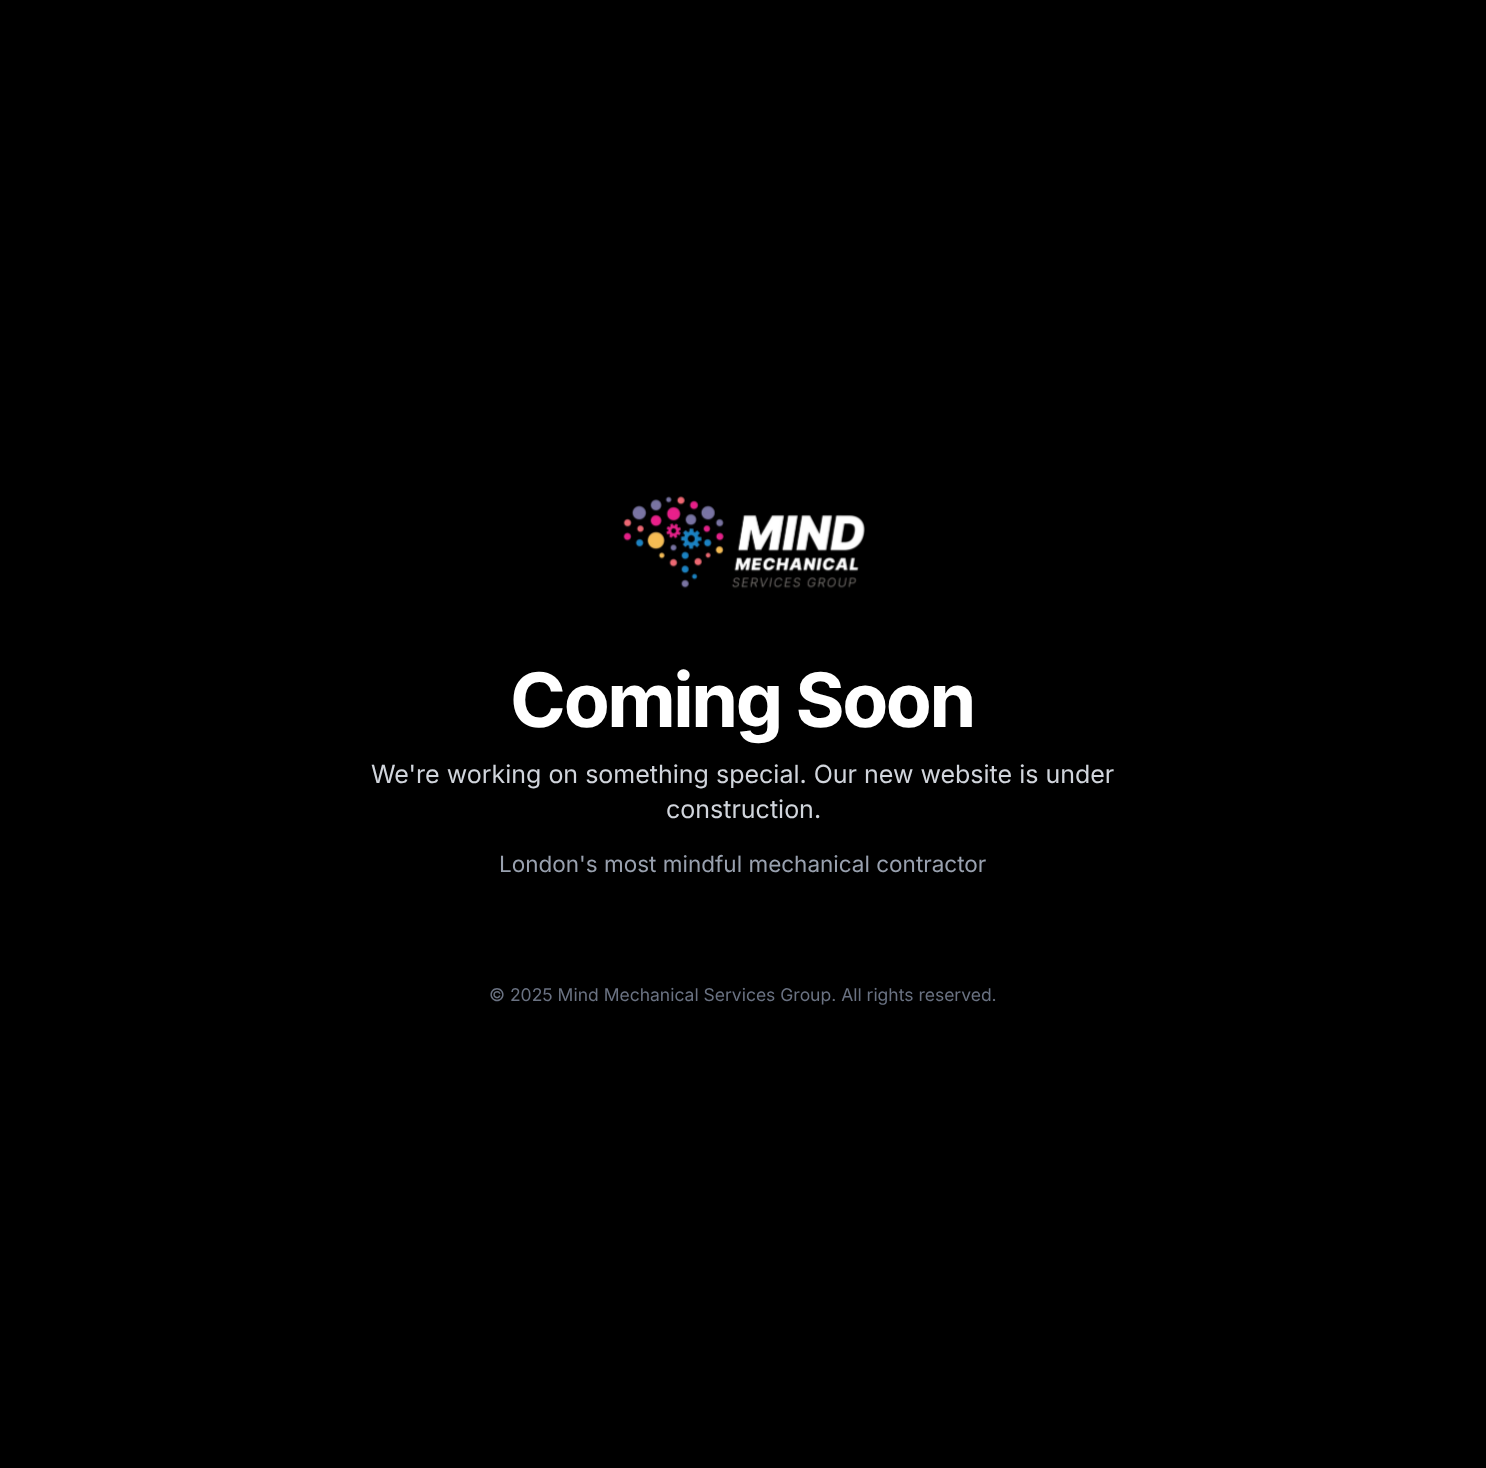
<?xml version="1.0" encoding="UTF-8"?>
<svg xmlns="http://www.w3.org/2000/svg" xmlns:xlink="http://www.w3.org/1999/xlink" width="1486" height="1468">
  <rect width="100%" height="100%" fill="#000000" />
  <image x="623" y="496" width="242" height="93" xlink:href="image1.png" />
  <text x="511" y="727" style="font-family: Inter Tight; font-size: 75px; font-weight: bold; fill: #ffffff">Coming Soon</text>
  <text x="371" y="783" style="font-family: Inter; font-size: 25px; fill: #d1d5dc">We're working on something special. Our new website is under</text>
  <text x="666" y="818" style="font-family: Inter; font-size: 25px; fill: #d1d5dc">construction.</text>
  <text x="499" y="872" style="font-family: Inter; font-size: 22.5px; fill: #99a1af">London's most mindful mechanical contractor</text>
  <text x="489" y="1001" style="font-family: Inter; font-size: 17.5px; fill: #6a7282">© 2025 Mind Mechanical Services Group. All rights reserved.</text>
</svg>
